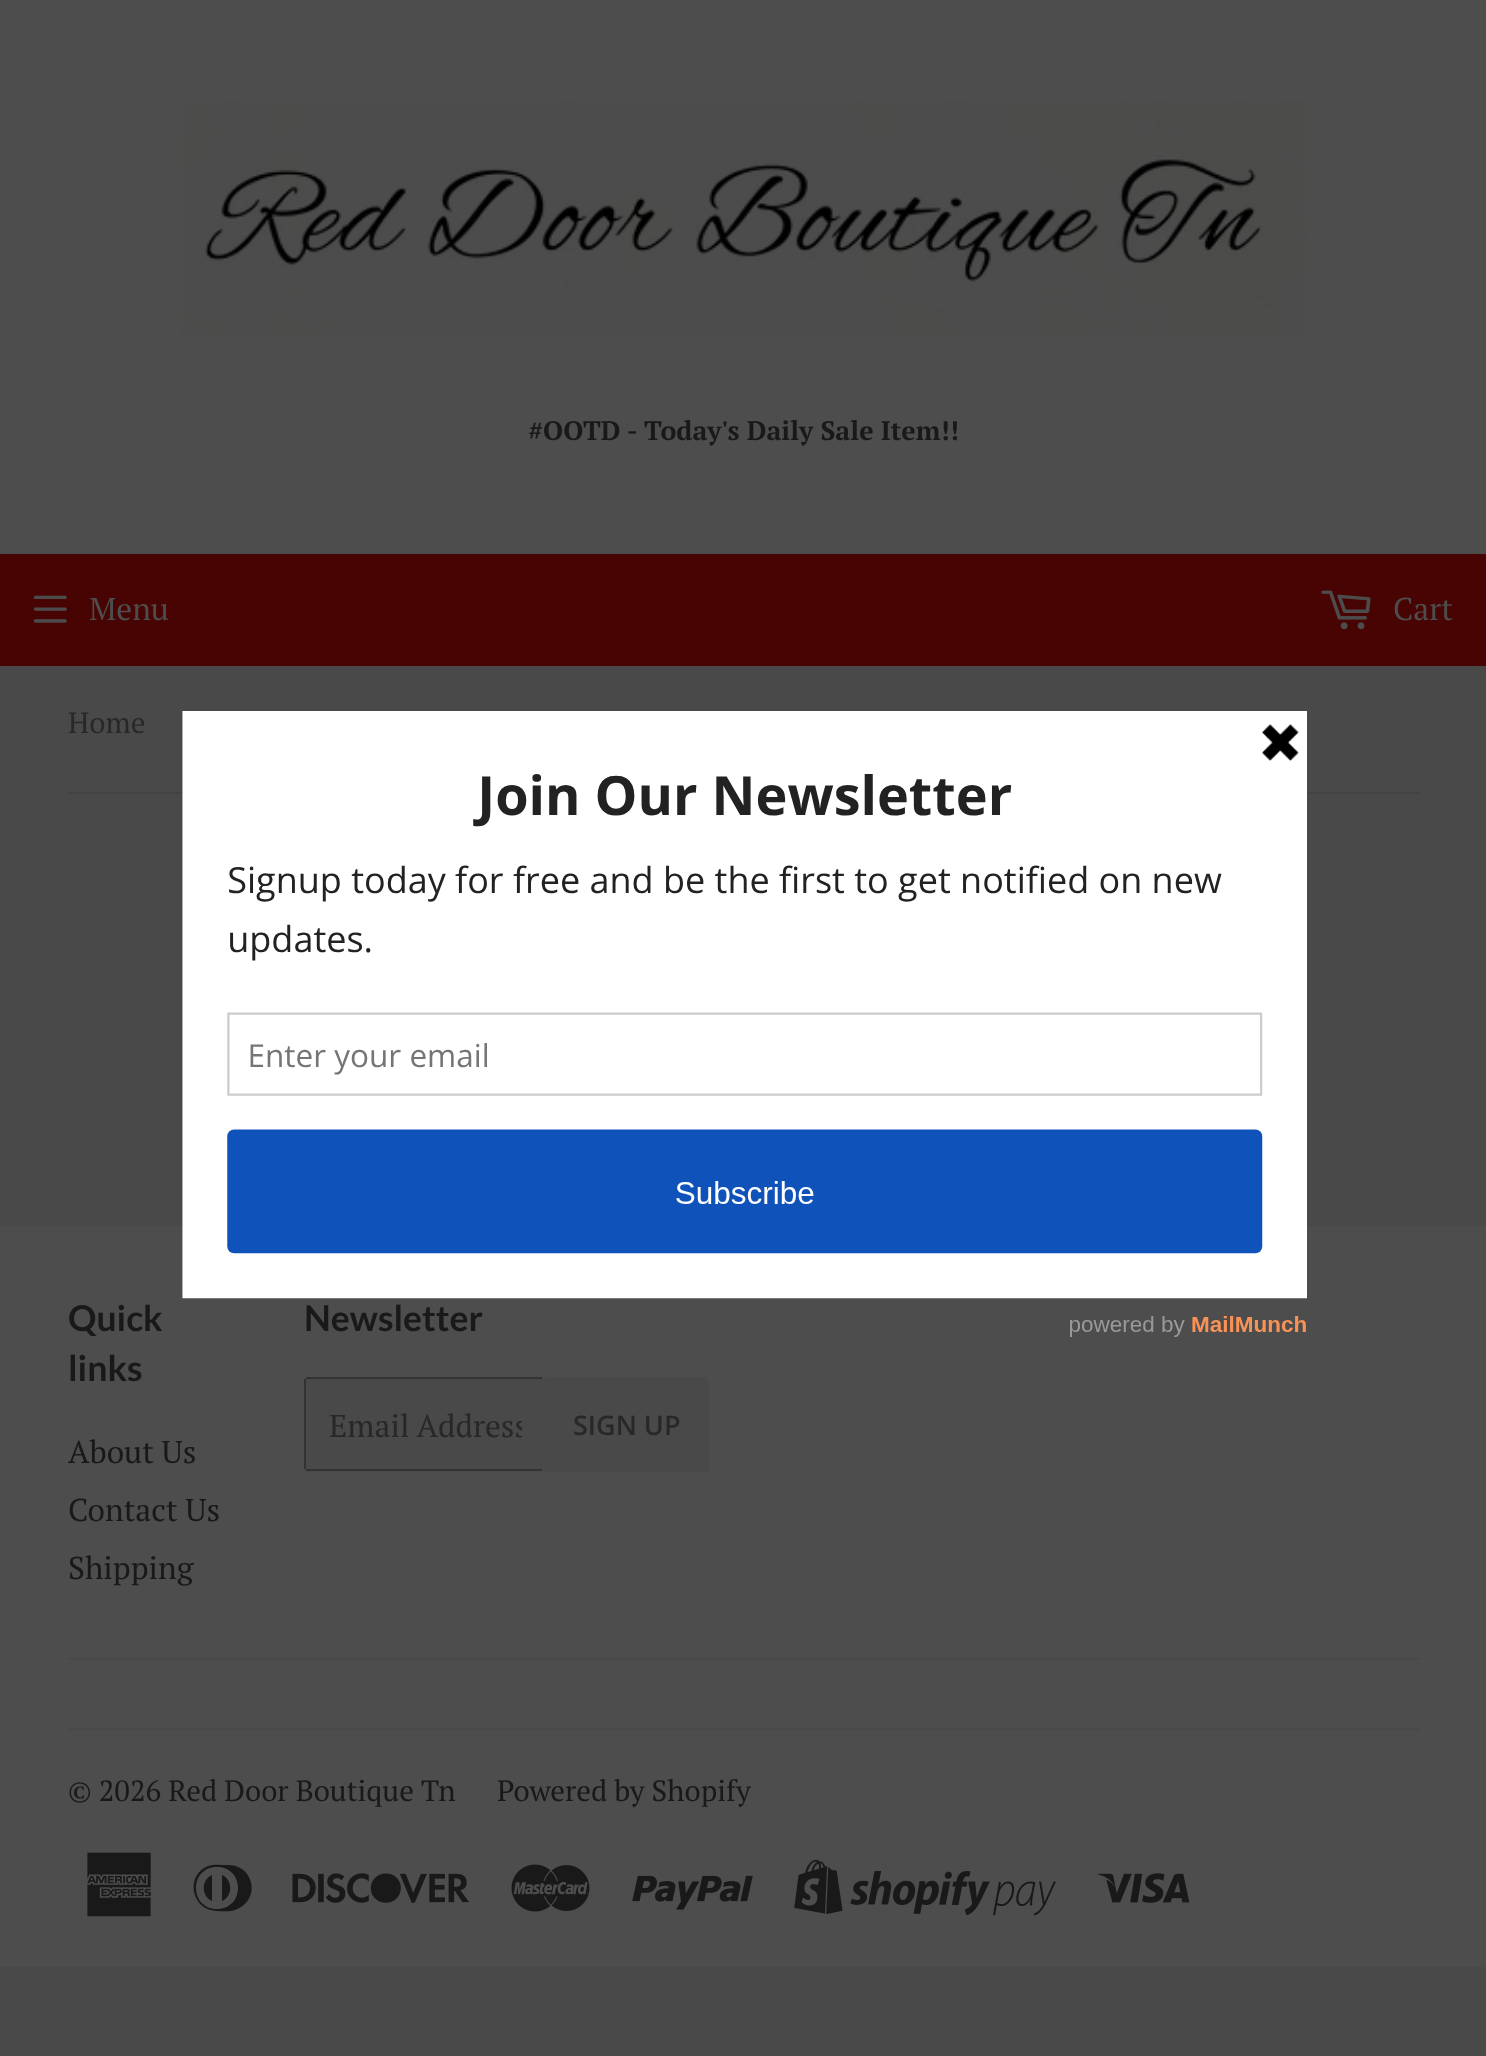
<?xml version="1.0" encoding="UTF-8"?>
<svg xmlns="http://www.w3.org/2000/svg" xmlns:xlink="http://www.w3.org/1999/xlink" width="1486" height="2056">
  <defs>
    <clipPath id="clip1"><rect x="329" y="1402" width="193" height="43" /></clipPath>
  </defs>
  <rect width="100%" height="100%" fill="#494949" />
  <rect width="1486" height="554" fill="#4d4d4d" />
  <image x="182" y="101" width="1125" height="237" xlink:href="image1.png" />
  <rect y="554" width="1486" height="112" fill="#480402" />
  <image x="33" y="595" width="34" height="28" xlink:href="image2.png" />
  <image x="1321" y="590" width="50" height="40" xlink:href="image3.png" />
  <rect x="68" y="792" width="1352" height="2" fill="#434343" />
  <rect y="1226" width="1486" height="741" fill="#4d4d4d" />
  <rect x="304" y="1377" width="241" height="95" rx="5" fill="#494949" />
  <rect x="306" y="1377" width="236" height="2" fill="#333333" />
  <rect x="306" y="1469" width="236" height="2" fill="#333333" />
  <rect x="304" y="1379" width="2" height="90" fill="#333333" />
  <path d="M 545 1377 h 159 c 3 0 5 2 5 5 v 85 c 0 3 -2 5 -5 5 h -159 z" fill="#494949" />
  <rect x="68" y="1658" width="1352" height="2" fill="#494949" />
  <rect x="68" y="1728" width="1352" height="2" fill="#494949" />
  <image x="87" y="1852" width="65" height="65" xlink:href="image5.png" />
  <path d="M 228 1865 c 27 0 33 36 7 45 c -5 2 -12 1 -18 1 c -25 0 -33 -35 -9 -45 c 6 -2 13 -1 20 -1 z m -11 44 c 28 0 28 -42 0 -42 c -28 0 -28 42 0 42 z m -5 -8 c -11 -5 -11 -21 0 -26 z m 10 -26 c 11 5 11 21 0 26 z" fill="#191919" />
  <image x="292" y="1873" width="177" height="30" xlink:href="image6.png" />
  <image x="511" y="1864" width="79" height="48" xlink:href="image7.png" />
  <image x="632" y="1875" width="121" height="35" xlink:href="image8.png" />
  <image x="794" y="1859" width="262" height="57" xlink:href="image9.png" />
  <image x="1098" y="1873" width="92" height="30" xlink:href="image10.png" />
  <text x="528" y="440" style="font-family: PT Serif; font-size: 26.75px; font-weight: bold; fill: #191919">#OOTD - Today's Daily Sale Item!!</text>
  <text x="89" y="620" style="font-family: PT Serif; font-size: 31.5px; fill: #4d4d4d">Menu</text>
  <text x="1393" y="620" style="font-family: PT Serif; font-size: 31.5px; fill: #4d4d4d">Cart</text>
  <text x="68" y="733" style="font-family: PT Serif; font-size: 29.25px; fill: #282828">Home</text>
  <text x="68" y="1331" style="font-family: Lato; font-size: 35.5px; font-weight: bold; fill: #191919">Quick</text>
  <text x="68" y="1381" style="font-family: Lato; font-size: 35.5px; font-weight: bold; fill: #191919">links</text>
  <text x="68" y="1463" style="font-family: PT Serif; font-size: 31.5px; fill: #191919">About Us</text>
  <text x="68" y="1521" style="font-family: PT Serif; font-size: 31.5px; fill: #191919">Contact Us</text>
  <text x="68" y="1579" style="font-family: PT Serif; font-size: 31.5px; fill: #191919">Shipping</text>
  <text x="304" y="1331" style="font-family: Lato; font-size: 35.5px; font-weight: bold; fill: #191919">Newsletter</text>
  <image x="182" y="711" width="1125" height="626" xlink:href="image4.png" />
  <g clip-path="url(#clip1)">
    <text x="329" y="1437" style="font-family: PT Serif; font-size: 31.5px; fill: #282828">Email Address</text>
  </g>
  <text x="573" y="1435" style="font-family: Open Sans; font-size: 27px; font-weight: 600; fill: #282828">SIGN UP</text>
  <text x="68" y="1801" style="font-family: PT Serif; font-size: 29.25px; fill: #191919">© 2026 Red Door Boutique Tn</text>
  <text x="497" y="1801" style="font-family: PT Serif; font-size: 29.25px; fill: #191919">Powered by Shopify</text>
</svg>
